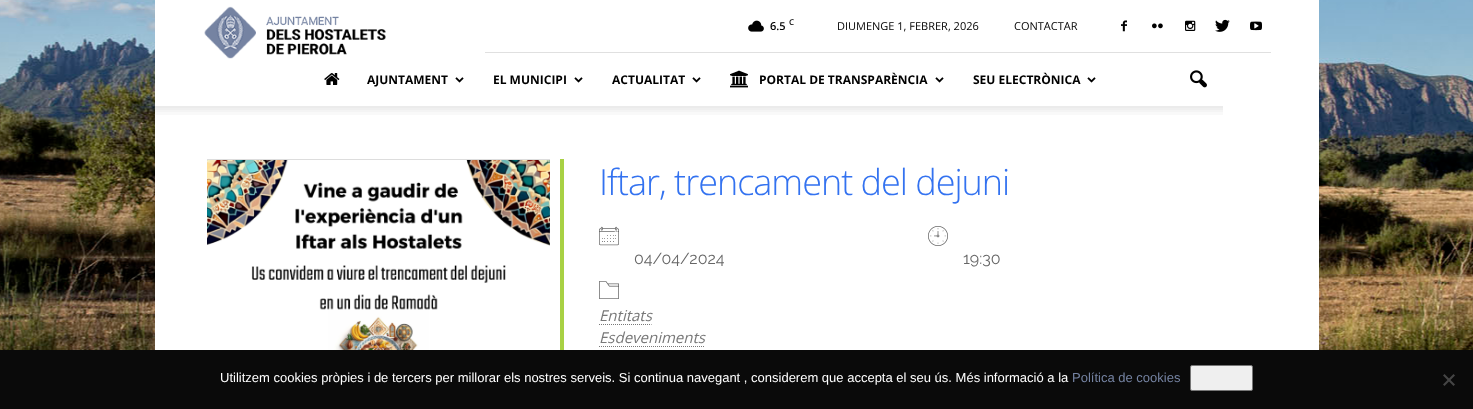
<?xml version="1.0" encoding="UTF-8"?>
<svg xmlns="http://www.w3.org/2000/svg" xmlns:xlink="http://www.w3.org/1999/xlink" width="1473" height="409">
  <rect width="100%" height="100%" fill="#ffffff" />
  <image x="0" y="0" width="1473" height="350" xlink:href="image1.png" />
  <rect x="155" width="1164" height="350" fill="#ffffff" />
  <image x="204" y="6" width="182" height="53" xlink:href="image2.png" />
  <rect x="485" y="52" width="786" height="1" fill="#e0e0e0" />
  <image x="748" y="20" width="16" height="12" xlink:href="image3.png" />
  <image x="1121" y="20" width="6" height="12" xlink:href="image4.png" />
  <image x="1152" y="23" width="11" height="6" xlink:href="image5.png" />
  <image x="1185" y="20" width="11" height="11" xlink:href="image6.png" />
  <image x="1215" y="19" width="15" height="13" xlink:href="image7.png" />
  <image x="1250" y="21" width="12" height="10" xlink:href="image8.png" />
  <image x="324" y="73" width="16" height="12" xlink:href="image9.png" />
  <image x="455" y="77" width="9" height="6" xlink:href="image10.png" />
  <image x="574" y="77" width="9" height="6" xlink:href="image10.png" />
  <image x="692" y="77" width="9" height="6" xlink:href="image10.png" />
  <image x="730" y="70" width="18" height="18" xlink:href="image11.png" />
  <image x="935" y="77" width="9" height="6" xlink:href="image10.png" />
  <image x="1087" y="77" width="9" height="6" xlink:href="image10.png" />
  <image x="1190" y="70" width="17" height="18" xlink:href="image12.png" />
  <image x="155" y="106" width="1068" height="9" xlink:href="image13.png" />
  <image x="207" y="159" width="343" height="191" xlink:href="image14.png" />
  <rect x="560" y="159" width="4" height="191" fill="#a8d144" />
  <image x="599" y="226" width="20" height="20" xlink:href="image15.png" />
  <image x="928" y="226" width="20" height="20" xlink:href="image16.png" />
  <image x="599" y="281" width="20" height="18" xlink:href="image17.png" />
  <path d="M 599 324.5 h 52.5" fill="none" stroke="#787878" stroke-dasharray="1 1" />
  <path d="M 599 346.5 h 106" fill="none" stroke="#787878" stroke-dasharray="1 1" />
  <rect y="350" width="1473" height="59" fill="#0a0a0a" />
  <rect x="1190.5" y="365.5" width="62" height="25" rx="1.5" fill="#efefef" stroke="#767676" />
  <path d="M 1453.5 374 l 1.5 1.5 l -10.5 10.5 l -1.5 -1.5 z" fill="#454545" />
  <path d="M 1443 375.5 l 1.5 -1.5 l 10.5 10.5 l -1.5 1.5 z" fill="#454545" />
  <text x="770" y="30" style="font-family: Open Sans; font-size: 11px; font-weight: 600; fill: #000000">6.5</text>
  <text x="789" y="25" style="font-family: Open Sans; font-size: 8px; font-weight: 600; fill: #000000">C</text>
  <text x="837" y="30" style="font-family: Open Sans; font-size: 11px; fill: #000000">DIUMENGE 1, FEBRER, 2026</text>
  <text x="1014" y="30" style="font-family: Open Sans; font-size: 11px; fill: #000000">CONTACTAR</text>
  <text x="367" y="84" style="font-family: Open Sans; font-size: 12px; font-weight: bold; fill: #000000">AJUNTAMENT</text>
  <text x="493" y="84" style="font-family: Open Sans; font-size: 12px; font-weight: bold; fill: #000000">EL MUNICIPI</text>
  <text x="612" y="84" style="font-family: Open Sans; font-size: 12px; font-weight: bold; fill: #000000">ACTUALITAT</text>
  <text x="759" y="84" style="font-family: Open Sans; font-size: 12px; font-weight: bold; fill: #000000">PORTAL DE TRANSPARÈNCIA</text>
  <text x="973" y="84" style="font-family: Open Sans; font-size: 12px; font-weight: bold; fill: #000000">SEU ELECTRÒNICA</text>
  <text x="599" y="195" style="font-family: Open Sans; font-size: 36px; font-weight: 300; letter-spacing: -1px; fill: #3372f0">Iftar, trencament del dejuni</text>
  <text x="634" y="264" style="font-family: Raleway; font-size: 16px; fill: #666666">04/04/2024</text>
  <text x="963" y="264" style="font-family: Raleway; font-size: 16px; fill: #666666">19:30</text>
  <text x="599" y="321" style="font-family: Open Sans; font-size: 15px; font-style: italic; fill: #787878">Entitats</text>
  <text x="599" y="343" style="font-family: Open Sans; font-size: 15px; font-style: italic; fill: #787878">Esdeveniments</text>
  <text x="220" y="382" style="font-family: Liberation Sans; font-size: 13px; fill: #ffffff">Utilitzem cookies pròpies i de tercers per millorar els nostres serveis. Si continua navegant , considerem que accepta el seu ús. Més informació a la</text>
  <text x="1072" y="382" style="font-family: Liberation Sans; font-size: 13px; fill: #7583a2">Política de cookies</text>
</svg>
